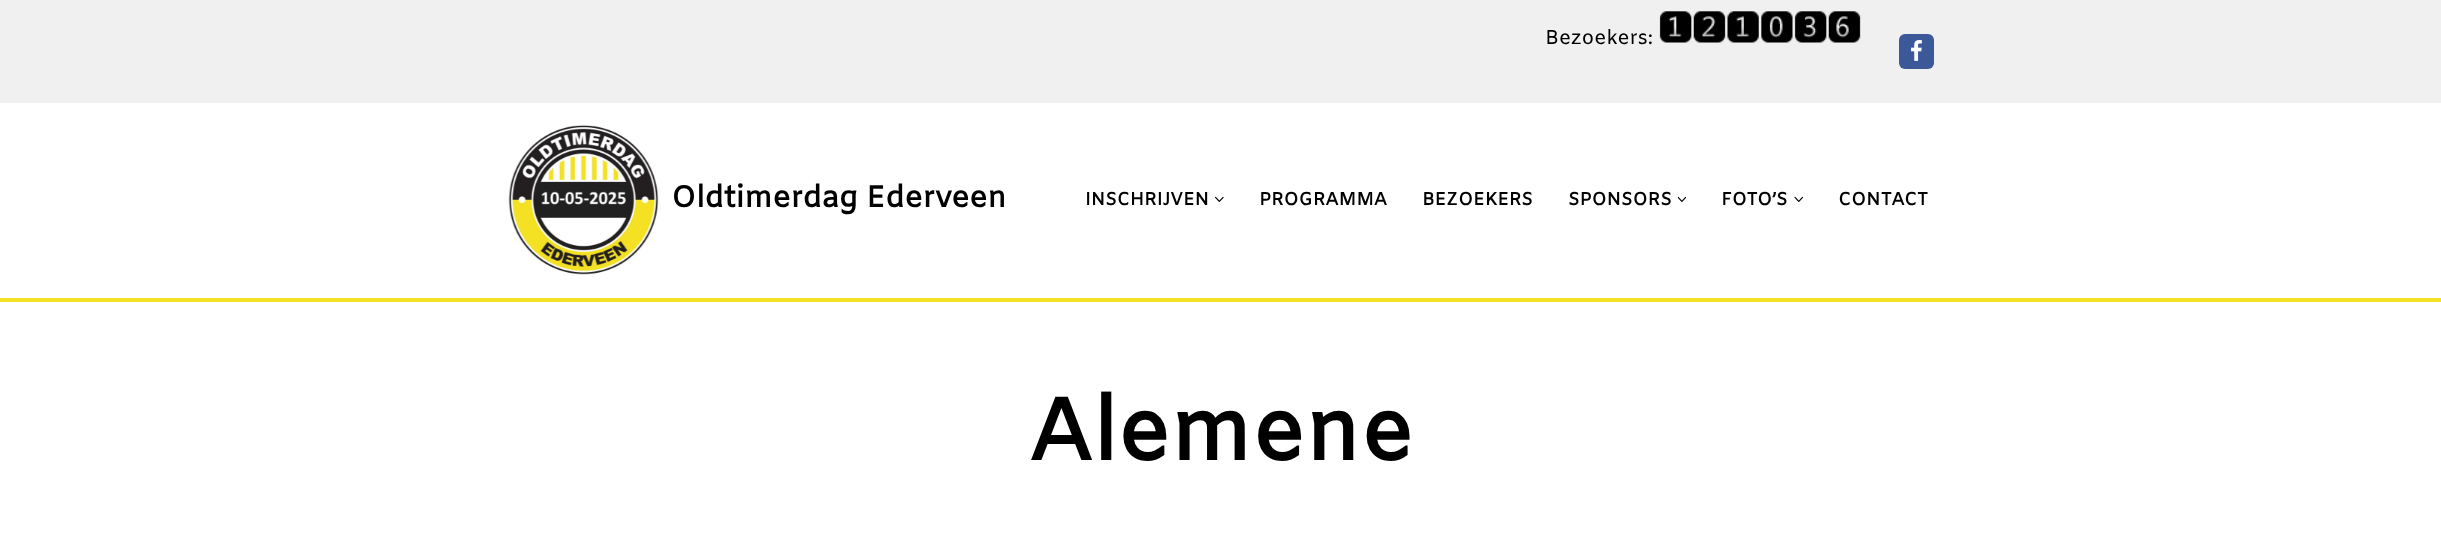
<?xml version="1.0" encoding="UTF-8"?>
<svg xmlns="http://www.w3.org/2000/svg" xmlns:xlink="http://www.w3.org/1999/xlink" width="2441" height="549">
  <rect width="100%" height="100%" fill="#ffffff" />
  <rect width="2441" height="103" fill="#f0f0f0" />
  <image x="1659" y="11" width="202" height="32" xlink:href="image1.png" />
  <rect x="1899" y="34" width="35" height="35" rx="6" fill="#3b5998" />
  <image x="1911" y="40" width="11" height="21" xlink:href="image2.png" />
  <rect y="298" width="2441" height="4" fill="#f4e123" />
  <image x="508" y="125" width="151" height="150" xlink:href="image3.png" />
  <image x="1215" y="196" width="9" height="6" xlink:href="image4.png" />
  <image x="1678" y="196" width="8" height="6" xlink:href="image5.png" />
  <image x="1794" y="196" width="9" height="6" xlink:href="image6.png" />
  <text x="1545" y="44" style="font-family: Amiko; font-size: 20px; fill: #000000">Bezoekers:</text>
  <text x="671" y="207" style="font-family: Amiko; font-size: 30px; font-weight: bold; fill: #000000">Oldtimerdag Ederveen</text>
  <text x="1085" y="205" style="font-family: Amiko; font-size: 18px; font-weight: bold; fill: #000000">INSCHRIJVEN</text>
  <text x="1259" y="205" style="font-family: Amiko; font-size: 18px; font-weight: bold; fill: #000000">PROGRAMMA</text>
  <text x="1422" y="205" style="font-family: Amiko; font-size: 18px; font-weight: bold; fill: #000000">BEZOEKERS</text>
  <text x="1568" y="205" style="font-family: Amiko; font-size: 18px; font-weight: bold; fill: #000000">SPONSORS</text>
  <text x="1721" y="205" style="font-family: Amiko; font-size: 18px; font-weight: bold; fill: #000000">FOTO’S</text>
  <text x="1838" y="205" style="font-family: Amiko; font-size: 18px; font-weight: bold; fill: #000000">CONTACT</text>
  <text x="1028" y="460" style="font-family: Amiko; font-size: 87.5px; font-weight: bold; fill: #000000">Alemene</text>
</svg>
